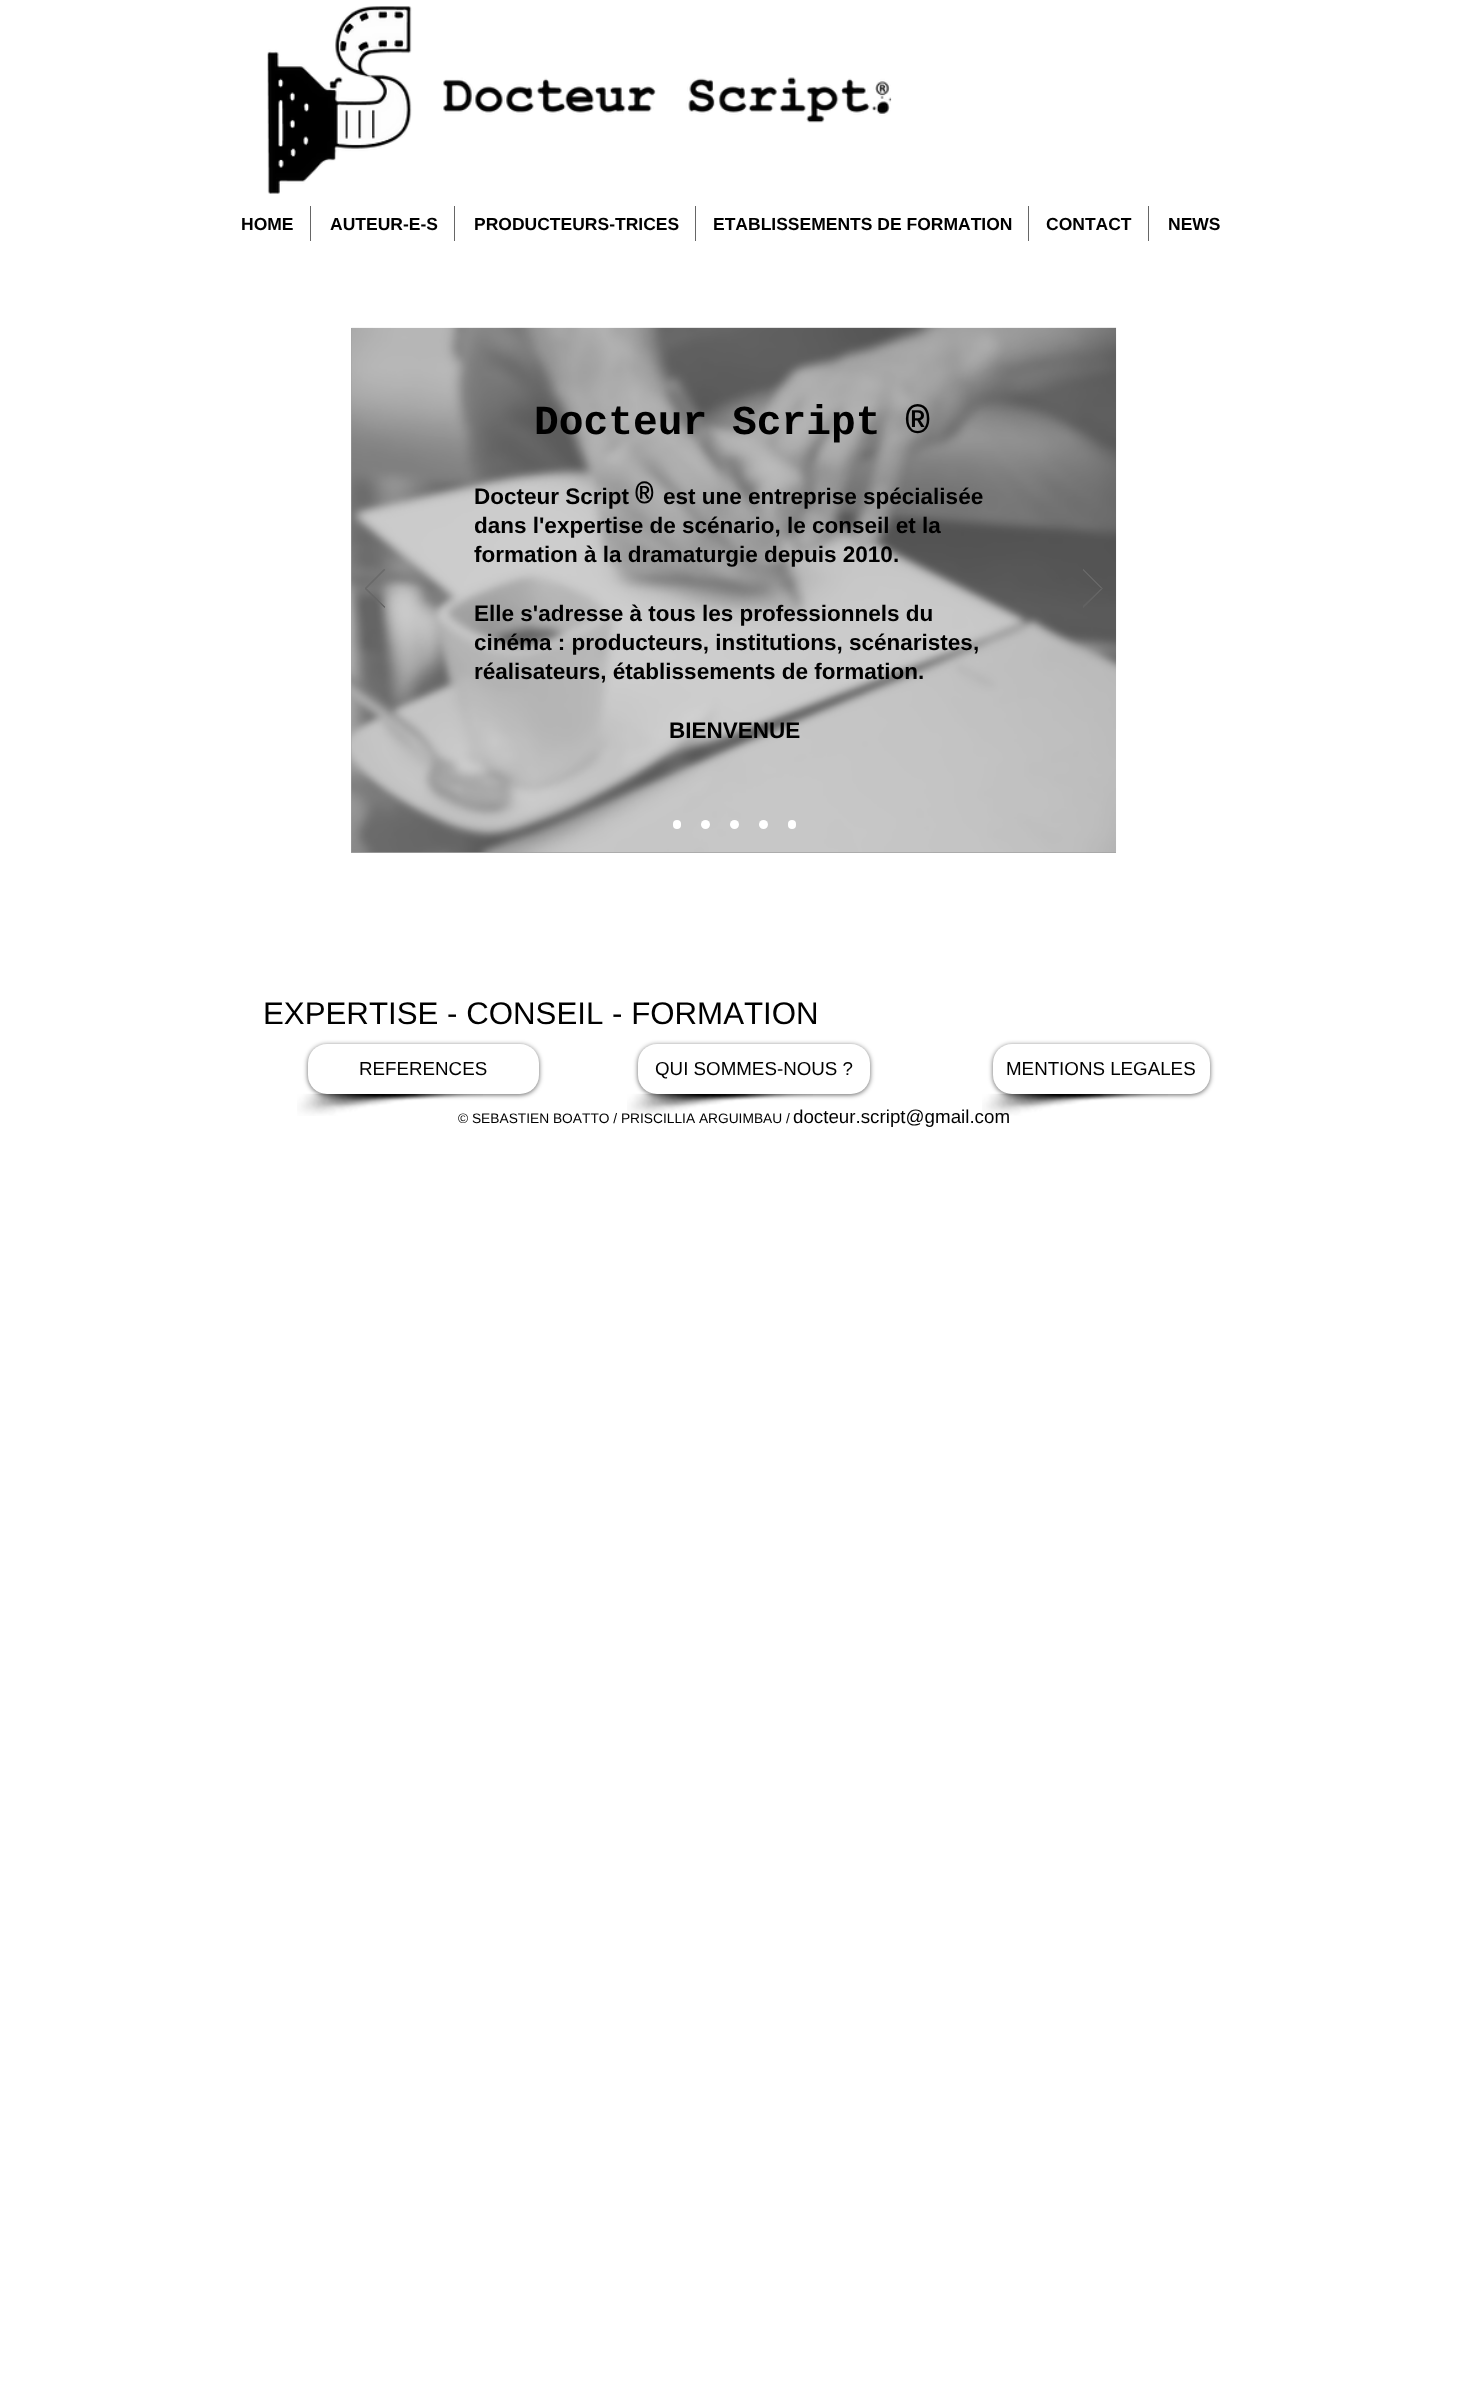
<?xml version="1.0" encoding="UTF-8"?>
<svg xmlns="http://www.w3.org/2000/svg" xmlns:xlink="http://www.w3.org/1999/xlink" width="1469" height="2397">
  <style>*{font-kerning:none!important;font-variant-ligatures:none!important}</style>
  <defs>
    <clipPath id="clip1"><rect x="365" y="569" width="20" height="39" /></clipPath>
    <clipPath id="clip2"><rect x="1083" y="569" width="20" height="39" /></clipPath>
  </defs>
  <rect width="100%" height="100%" fill="#ffffff" />
  <image x="267" y="6" width="625" height="188" xlink:href="image1.png" />
  <rect x="310" y="206" width="1" height="35" fill="#666666" />
  <rect x="454" y="206" width="1" height="35" fill="#666666" />
  <rect x="695" y="206" width="1" height="35" fill="#666666" />
  <rect x="1028" y="206" width="1" height="35" fill="#666666" />
  <rect x="1148" y="206" width="1" height="35" fill="#666666" />
  <rect x="351" y="328" width="765" height="525" fill="#a4a4a4" />
  <image x="351" y="327" width="766" height="526" xlink:href="image2.png" />
  <g clip-path="url(#clip1)">
    <path d="M 384.5 607.5 l -19.5 -19 l 19.5 -19.5 l 0.5 0.5 l -19 19 l 19 18.5 z" fill="none" stroke="#666666" />
  </g>
  <g clip-path="url(#clip2)">
    <path d="M 1083 607.5 l 19.5 -19 l -19.5 -19.5 l -0.5 0.5 l 19 19 l -19 18.5 z" fill="none" stroke="#666666" />
  </g>
  <rect x="673" y="820" width="8" height="9" rx="4" fill="#ffffff" />
  <circle cx="705.5" cy="824.5" r="4.5" fill="#ffffff" />
  <circle cx="734.5" cy="824.5" r="4.5" fill="#ffffff" />
  <circle cx="763.5" cy="824.5" r="4.5" fill="#ffffff" />
  <rect x="788" y="820" width="8" height="9" rx="4" fill="#ffffff" />
  <image x="297" y="1093" width="186" height="23" xlink:href="image3.png" />
  <rect x="308" y="1045" width="231" height="50" rx="19" fill="#000000" fill-opacity="0.6" filter="blur(2.5px)" />
  <rect x="308" y="1044" width="231" height="50" rx="19" fill="#ffffff" />
  <image x="627" y="1093" width="186" height="23" xlink:href="image4.png" />
  <rect x="638" y="1045" width="232" height="50" rx="19" fill="#000000" fill-opacity="0.6" filter="blur(2.5px)" />
  <rect x="638" y="1044" width="232" height="50" rx="19" fill="#ffffff" />
  <image x="982" y="1093" width="186" height="23" xlink:href="image5.png" />
  <rect x="993" y="1045" width="217" height="50" rx="19" fill="#000000" fill-opacity="0.6" filter="blur(2.5px)" />
  <rect x="993" y="1044" width="217" height="50" rx="19" fill="#ffffff" />
  <text x="241" y="230" style="font-family: Liberation Sans; font-size: 17.5px; font-weight: bold; fill: #000000">HOME</text>
  <text x="330" y="230" style="font-family: Liberation Sans; font-size: 17.5px; font-weight: bold; fill: #000000">AUTEUR-E-S</text>
  <text x="474" y="230" style="font-family: Liberation Sans; font-size: 17.5px; font-weight: bold; fill: #000000">PRODUCTEURS-TRICES</text>
  <text x="713" y="230" style="font-family: Liberation Sans; font-size: 17.5px; font-weight: bold; fill: #000000">ETABLISSEMENTS DE FORMATION</text>
  <text x="1046" y="230" style="font-family: Liberation Sans; font-size: 17.5px; font-weight: bold; fill: #000000">CONTACT</text>
  <text x="1168" y="230" style="font-family: Liberation Sans; font-size: 17.5px; font-weight: bold; fill: #000000">NEWS</text>
  <text x="534" y="434" style="font-family: Liberation Mono; font-size: 41.25px; font-weight: bold; fill: #000000">Docteur Script ®</text>
  <text x="474" y="504" style="font-family: Liberation Sans; font-size: 22.5px; font-weight: bold; fill: #000000">Docteur Script</text>
  <text x="635" y="504" style="font-family: Liberation Mono; font-size: 31.25px; font-weight: bold; fill: #000000">®</text>
  <text x="663" y="504" style="font-family: Liberation Sans; font-size: 22.5px; font-weight: bold; fill: #000000">est une entreprise spécialisée</text>
  <text x="474" y="533" style="font-family: Liberation Sans; font-size: 22.5px; font-weight: bold; fill: #000000">dans l'expertise de scénario, le conseil et la</text>
  <text x="474" y="562" style="font-family: Liberation Sans; font-size: 22.5px; font-weight: bold; fill: #000000">formation à la dramaturgie depuis 2010.</text>
  <text x="474" y="621" style="font-family: Liberation Sans; font-size: 22.5px; font-weight: bold; fill: #000000">Elle s'adresse à tous les professionnels du</text>
  <text x="474" y="650" style="font-family: Liberation Sans; font-size: 22.5px; font-weight: bold; fill: #000000">cinéma : producteurs, institutions, scénaristes,</text>
  <text x="474" y="679" style="font-family: Liberation Sans; font-size: 22.5px; font-weight: bold; fill: #000000">réalisateurs, établissements de formation.</text>
  <text x="669" y="738" style="font-family: Liberation Sans; font-size: 22.5px; font-weight: bold; fill: #000000">BIENVENUE</text>
  <text x="263" y="1024" style="font-family: Liberation Sans; font-size: 31.25px; fill: #000000">EXPERTISE - CONSEIL - FORMATION</text>
  <text x="359" y="1075" style="font-family: Liberation Sans; font-size: 18.75px; fill: #000000">REFERENCES</text>
  <text x="655" y="1075" style="font-family: Liberation Sans; font-size: 18.75px; fill: #000000">QUI SOMMES-NOUS ?</text>
  <text x="1006" y="1075" style="font-family: Liberation Sans; font-size: 18.75px; fill: #000000">MENTIONS LEGALES</text>
  <text x="458" y="1123" style="font-family: Liberation Sans; font-size: 13.75px; fill: #000000">© SEBASTIEN BOATTO / PRISCILLIA ARGUIMBAU /</text>
  <text x="793" y="1123" style="font-family: Liberation Sans; font-size: 18.75px; fill: #000000">docteur.script@gmail.com</text>
</svg>
